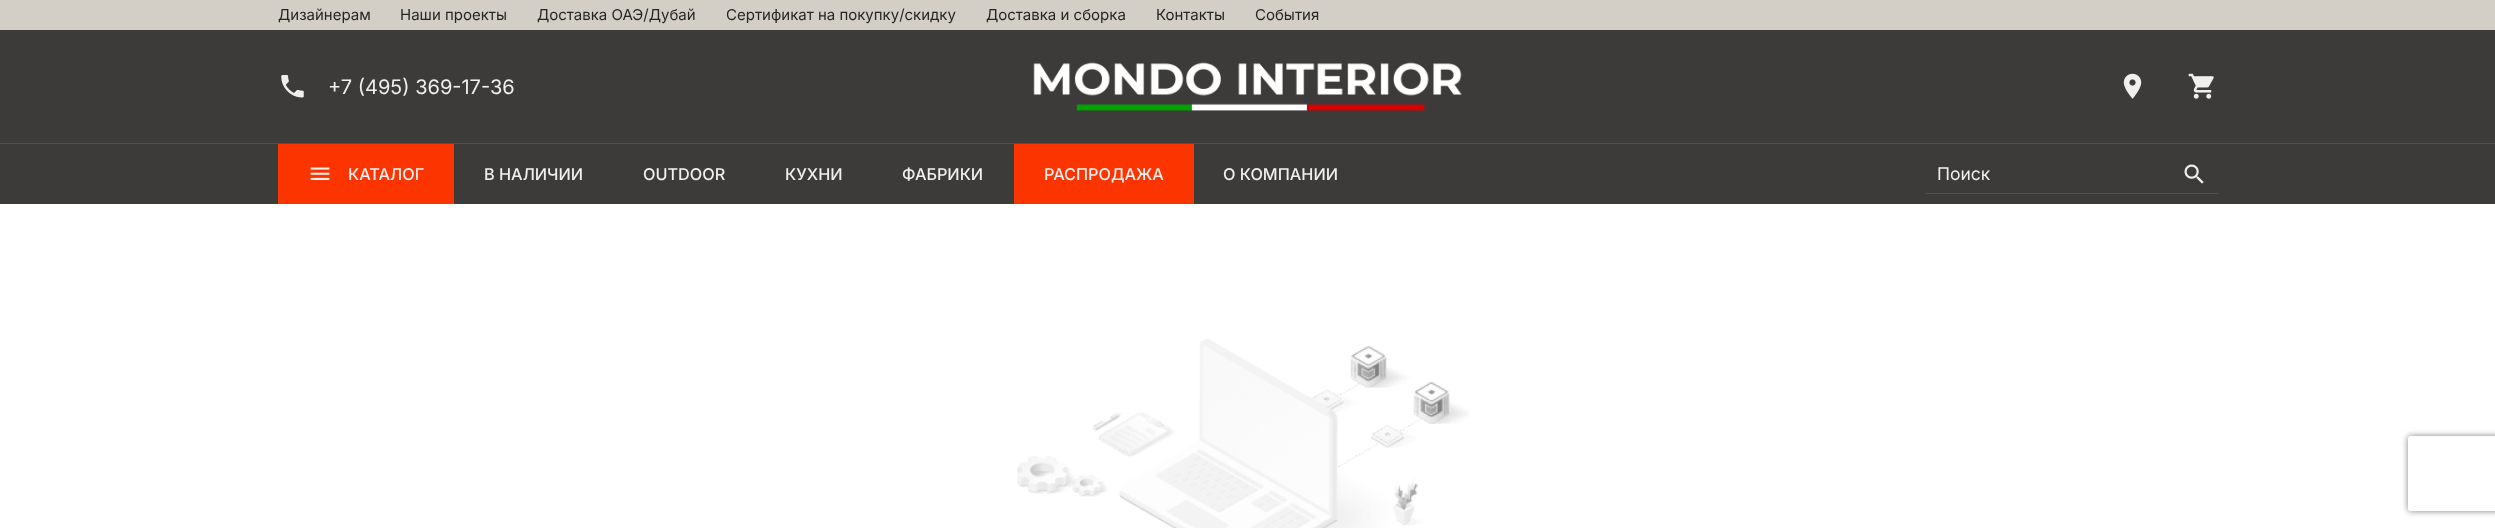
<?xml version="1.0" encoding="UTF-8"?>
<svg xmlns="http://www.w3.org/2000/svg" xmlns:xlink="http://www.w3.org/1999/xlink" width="2495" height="528">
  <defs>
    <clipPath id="clip1"><path d="M 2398 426 h 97 v 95 h -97 z m 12.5 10 h 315 c 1.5 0 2.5 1 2.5 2.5 v 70 c 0 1.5 -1 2.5 -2.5 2.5 h -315 c -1.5 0 -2.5 -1 -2.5 -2.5 v -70 c 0 -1.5 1 -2.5 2.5 -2.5 z" clip-rule="evenodd" /></clipPath>
  </defs>
  <rect width="100%" height="100%" fill="#ffffff" />
  <rect width="2495" height="30" fill="#d3cfc7" />
  <rect y="30" width="2495" height="113" fill="#3c3b39" />
  <image x="281" y="75" width="23" height="23" xlink:href="image1.png" />
  <image x="1033" y="62" width="429" height="49" xlink:href="image2.png" />
  <image x="2123" y="73" width="19" height="26" xlink:href="image3.png" />
  <image x="2188" y="73" width="26" height="26" xlink:href="image4.png" />
  <rect y="144" width="2495" height="60" fill="#3c3b39" />
  <rect y="143" width="2495" height="1" fill="#545250" />
  <rect x="278" y="144" width="176" height="60" fill="#fc3500" />
  <image x="310" y="167" width="20" height="13" xlink:href="image5.png" />
  <rect x="1014" y="144" width="180" height="60" fill="#fc3500" />
  <rect x="1926" y="193" width="292" height="1" fill="#545250" />
  <image x="2184" y="164" width="20" height="20" xlink:href="image6.png" />
  <image x="1017" y="338" width="453" height="190" xlink:href="image7.png" />
  <g clip-path="url(#clip1)">
    <rect x="2408" y="436" width="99" height="75" rx="2.5" fill="#808080" filter="blur(3px)" />
  </g>
  <text x="278" y="20" style="font-family: Inter; font-size: 15px; fill: #252525">Дизайнерам</text>
  <text x="400" y="20" style="font-family: Inter; font-size: 15px; fill: #252525">Наши проекты</text>
  <text x="537" y="20" style="font-family: Inter; font-size: 15px; fill: #252525">Доставка ОАЭ/Дубай</text>
  <text x="726" y="20" style="font-family: Inter; font-size: 15px; fill: #252525">Сертификат на покупку/скидку</text>
  <text x="986" y="20" style="font-family: Inter; font-size: 15px; fill: #252525">Доставка и сборка</text>
  <text x="1156" y="20" style="font-family: Inter; font-size: 15px; fill: #252525">Контакты</text>
  <text x="1255" y="20" style="font-family: Inter; font-size: 15px; fill: #252525">События</text>
  <text x="328" y="94" style="font-family: Inter; font-size: 20px; fill: #efefef">+7 (495) 369-17-36</text>
  <text x="348" y="180" style="font-family: Inter; font-size: 16.25px; font-weight: 500; fill: #efefef">КАТАЛОГ</text>
  <text x="484" y="180" style="font-family: Inter; font-size: 16.25px; font-weight: 500; fill: #efefef">В НАЛИЧИИ</text>
  <text x="643" y="180" style="font-family: Inter; font-size: 16.25px; font-weight: 500; fill: #efefef">OUTDOOR</text>
  <text x="785" y="180" style="font-family: Inter; font-size: 16.25px; font-weight: 500; fill: #efefef">КУХНИ</text>
  <text x="902" y="180" style="font-family: Inter; font-size: 16.25px; font-weight: 500; fill: #efefef">ФАБРИКИ</text>
  <text x="1044" y="180" style="font-family: Inter; font-size: 16.25px; font-weight: 500; fill: #efefef">РАСПРОДАЖА</text>
  <text x="1223" y="180" style="font-family: Inter; font-size: 16.25px; font-weight: 500; fill: #efefef">О КОМПАНИИ</text>
  <text x="1937" y="180" style="font-family: Inter; font-size: 17.5px; fill: #efefef">Поиск</text>
</svg>
